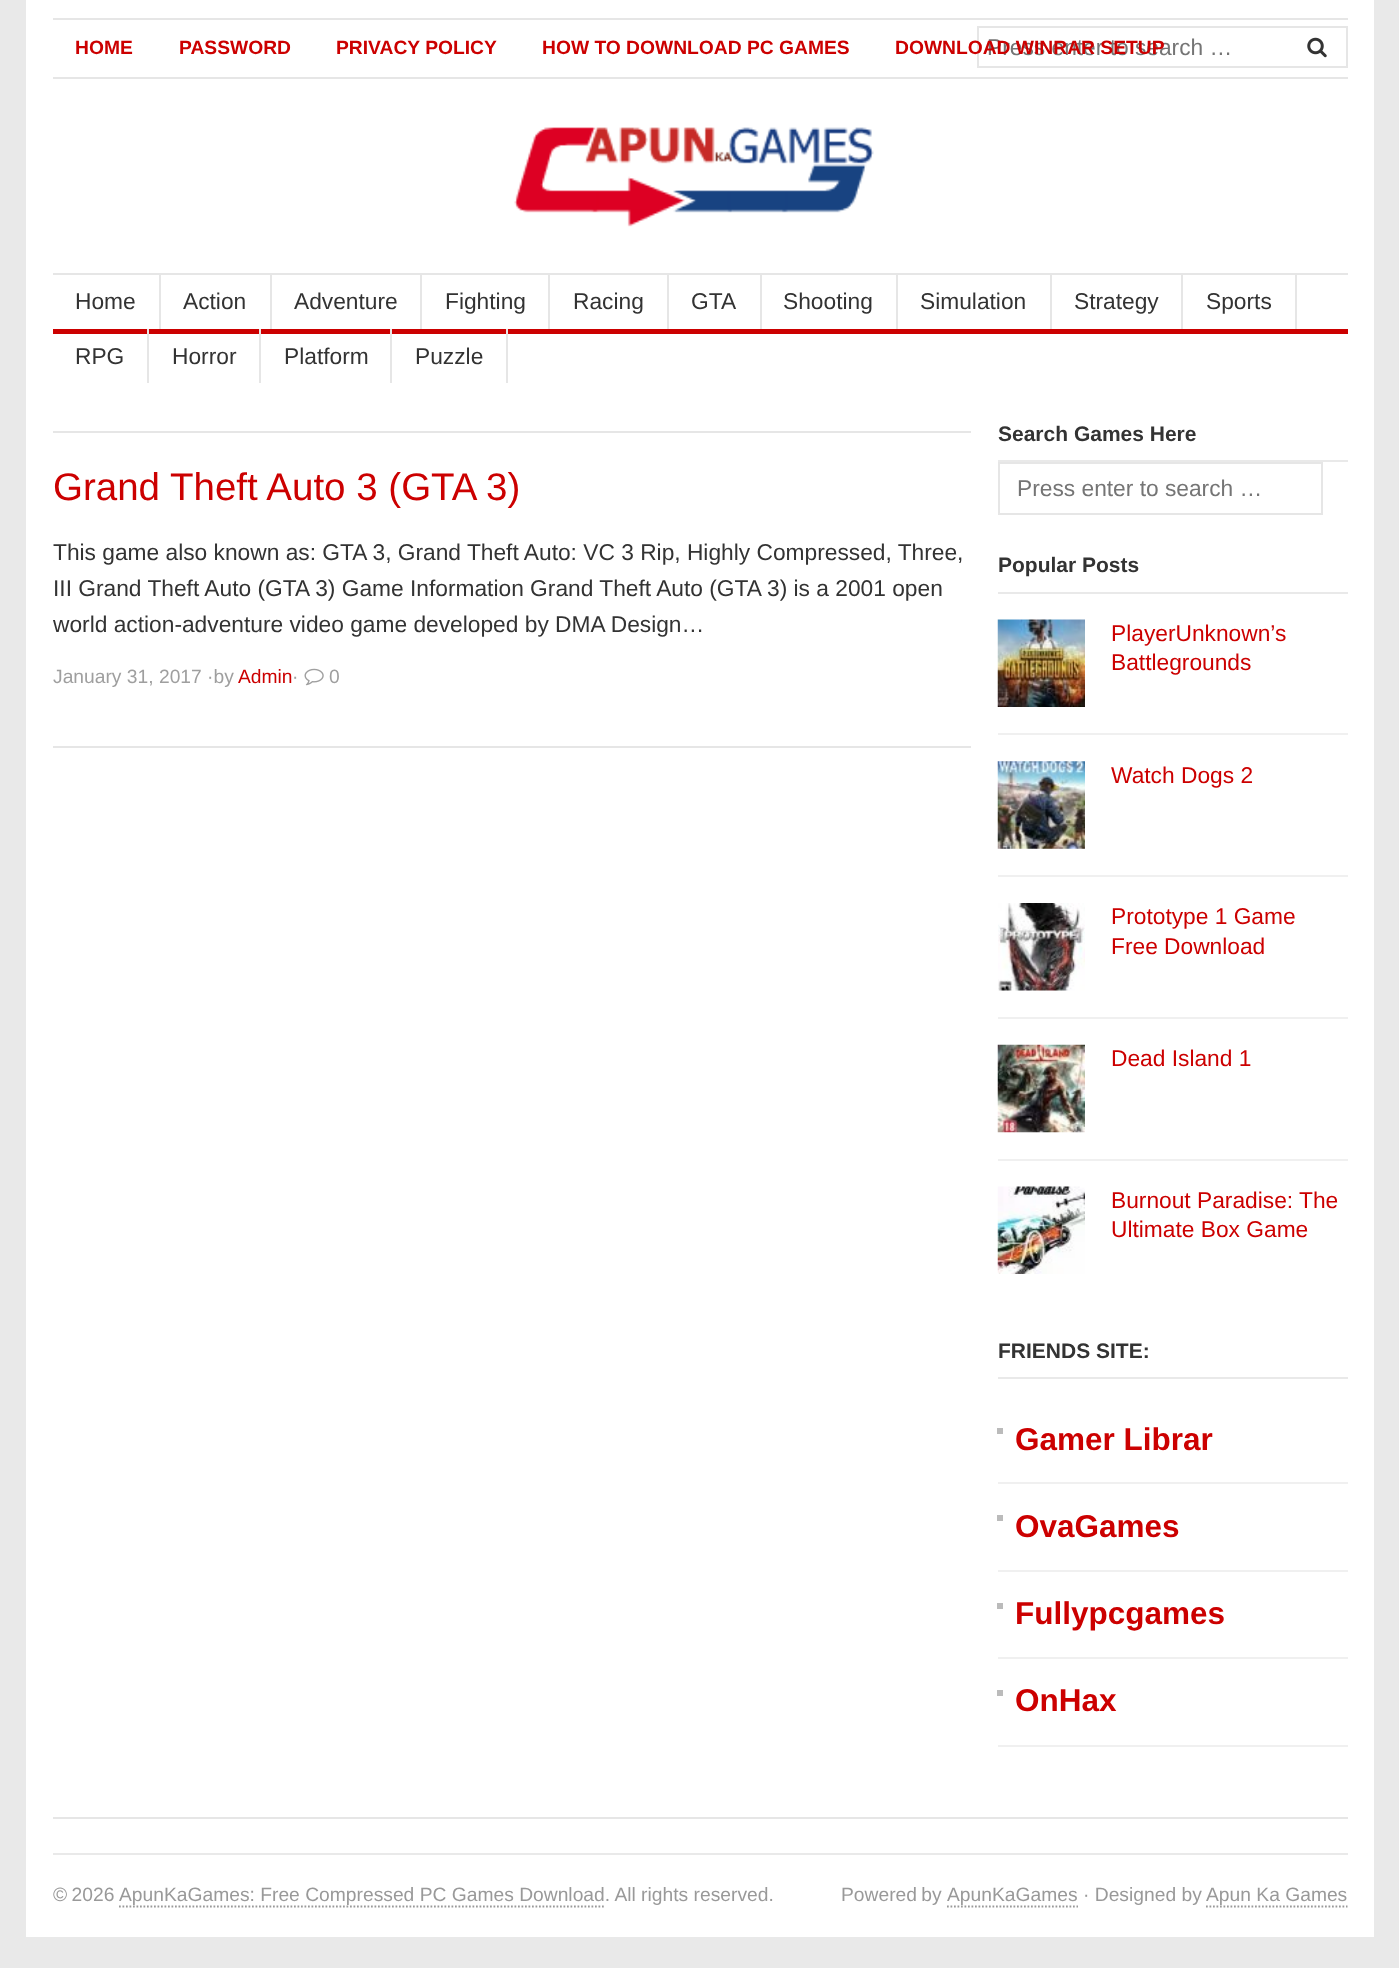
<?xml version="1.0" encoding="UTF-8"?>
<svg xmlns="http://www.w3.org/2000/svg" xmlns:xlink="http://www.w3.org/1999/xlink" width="1399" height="1968">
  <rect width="100%" height="100%" fill="#e9e9e9" />
  <rect x="26" width="1348" height="1937" fill="#ffffff" />
  <rect x="53" y="18" width="1295" height="2" fill="#e6e6e6" />
  <rect x="53" y="77" width="1295" height="2" fill="#e6e6e6" />
  <rect x="978" y="27" width="369" height="40" fill="none" stroke="#e6e6e6" stroke-width="2" />
  <image x="1307" y="37" width="20" height="21" xlink:href="image1.png" />
  <image x="514" y="127" width="360" height="100" xlink:href="image2.png" />
  <rect x="53" y="273" width="1295" height="2" fill="#e6e6e6" />
  <rect x="53" y="329" width="1295" height="5" fill="#cc0000" />
  <rect x="159" y="275" width="2" height="54" fill="#e6e6e6" />
  <rect x="270" y="275" width="2" height="54" fill="#e6e6e6" />
  <rect x="420" y="275" width="2" height="54" fill="#e6e6e6" />
  <rect x="548" y="275" width="2" height="54" fill="#e6e6e6" />
  <rect x="667" y="275" width="2" height="54" fill="#e6e6e6" />
  <rect x="760" y="275" width="2" height="54" fill="#e6e6e6" />
  <rect x="896" y="275" width="2" height="54" fill="#e6e6e6" />
  <rect x="1050" y="275" width="2" height="54" fill="#e6e6e6" />
  <rect x="1181" y="275" width="2" height="54" fill="#e6e6e6" />
  <rect x="1295" y="275" width="2" height="54" fill="#e6e6e6" />
  <rect x="147" y="329" width="2" height="54" fill="#e6e6e6" />
  <rect x="259" y="329" width="2" height="54" fill="#e6e6e6" />
  <rect x="390" y="329" width="2" height="54" fill="#e6e6e6" />
  <rect x="506" y="329" width="2" height="54" fill="#e6e6e6" />
  <rect x="53" y="431" width="918" height="2" fill="#e6e6e6" />
  <rect x="53" y="746" width="918" height="2" fill="#e6e6e6" />
  <image x="304" y="668" width="20" height="18" xlink:href="image3.png" />
  <rect x="998" y="460" width="350" height="2" fill="#e9e9e9" />
  <rect x="999" y="463" width="323" height="51" fill="none" stroke="#e6e6e6" stroke-width="2" />
  <rect x="998" y="592" width="350" height="2" fill="#e9e9e9" />
  <rect x="998" y="733" width="350" height="2" fill="#f0f0f0" />
  <image x="997" y="619" width="88" height="88" xlink:href="image4.png" />
  <rect x="998" y="875" width="350" height="2" fill="#f0f0f0" />
  <image x="997" y="761" width="88" height="88" xlink:href="image5.png" />
  <rect x="998" y="1017" width="350" height="2" fill="#f0f0f0" />
  <image x="998" y="903" width="87" height="88" xlink:href="image6.png" />
  <rect x="998" y="1159" width="350" height="2" fill="#f0f0f0" />
  <image x="997" y="1044" width="88" height="89" xlink:href="image7.png" />
  <image x="997" y="1186" width="88" height="88" xlink:href="image8.png" />
  <rect x="998" y="1377" width="350" height="2" fill="#e9e9e9" />
  <rect x="997" y="1428" width="6" height="6" fill="#bbbbbb" />
  <rect x="998" y="1482" width="350" height="2" fill="#f0f0f0" />
  <rect x="997" y="1515" width="6" height="6" fill="#bbbbbb" />
  <rect x="998" y="1570" width="350" height="2" fill="#f0f0f0" />
  <rect x="997" y="1603" width="6" height="6" fill="#bbbbbb" />
  <rect x="998" y="1657" width="350" height="2" fill="#f0f0f0" />
  <rect x="997" y="1690" width="6" height="6" fill="#bbbbbb" />
  <rect x="998" y="1745" width="350" height="2" fill="#f0f0f0" />
  <rect x="53" y="1817" width="1295" height="2" fill="#e6e6e6" />
  <rect x="53" y="1853" width="1295" height="2" fill="#e9e9e9" />
  <path d="M 119 1906.5 h 486.5" fill="none" stroke="#999999" stroke-width="1.8" stroke-dasharray="1.75 1.75" />
  <path d="M 947 1906.5 h 131" fill="none" stroke="#999999" stroke-width="1.8" stroke-dasharray="1.75 1.75" />
  <path d="M 1206 1906.5 h 141.5" fill="none" stroke="#999999" stroke-width="1.8" stroke-dasharray="1.75 1.75" />
  <text x="987" y="55" style="font-family: Liberation Sans; font-size: 22.75px; fill: #757575">Press enter to search …</text>
  <text x="75" y="54" style="font-family: Liberation Sans; font-size: 19.25px; font-weight: bold; fill: #cc0000">HOME</text>
  <text x="179" y="54" style="font-family: Liberation Sans; font-size: 19.25px; font-weight: bold; fill: #cc0000">PASSWORD</text>
  <text x="336" y="54" style="font-family: Liberation Sans; font-size: 19.25px; font-weight: bold; fill: #cc0000">PRIVACY POLICY</text>
  <text x="542" y="54" style="font-family: Liberation Sans; font-size: 19.25px; font-weight: bold; fill: #cc0000">HOW TO DOWNLOAD PC GAMES</text>
  <text x="895" y="54" style="font-family: Liberation Sans; font-size: 19.25px; font-weight: bold; fill: #cc0000">DOWNLOAD WINRAR SETUP</text>
  <text x="75" y="309" style="font-family: Liberation Sans; font-size: 22.75px; fill: #333333">Home</text>
  <text x="183" y="309" style="font-family: Liberation Sans; font-size: 22.75px; fill: #333333">Action</text>
  <text x="294" y="309" style="font-family: Liberation Sans; font-size: 22.75px; fill: #333333">Adventure</text>
  <text x="445" y="309" style="font-family: Liberation Sans; font-size: 22.75px; fill: #333333">Fighting</text>
  <text x="573" y="309" style="font-family: Liberation Sans; font-size: 22.75px; fill: #333333">Racing</text>
  <text x="691" y="309" style="font-family: Liberation Sans; font-size: 22.75px; fill: #333333">GTA</text>
  <text x="783" y="309" style="font-family: Liberation Sans; font-size: 22.75px; fill: #333333">Shooting</text>
  <text x="920" y="309" style="font-family: Liberation Sans; font-size: 22.75px; fill: #333333">Simulation</text>
  <text x="1074" y="309" style="font-family: Liberation Sans; font-size: 22.75px; fill: #333333">Strategy</text>
  <text x="1206" y="309" style="font-family: Liberation Sans; font-size: 22.75px; fill: #333333">Sports</text>
  <text x="75" y="364" style="font-family: Liberation Sans; font-size: 22.75px; fill: #333333">RPG</text>
  <text x="172" y="364" style="font-family: Liberation Sans; font-size: 22.75px; fill: #333333">Horror</text>
  <text x="284" y="364" style="font-family: Liberation Sans; font-size: 22.75px; fill: #333333">Platform</text>
  <text x="415" y="364" style="font-family: Liberation Sans; font-size: 22.75px; fill: #333333">Puzzle</text>
  <text x="53" y="500" style="font-family: Liberation Sans; font-size: 38.5px; fill: #cc0000">Grand Theft Auto 3 (GTA 3)</text>
  <text x="53" y="560" style="font-family: Liberation Sans; font-size: 22.75px; fill: #333333">This game also known as: GTA 3, Grand Theft Auto: VC 3 Rip, Highly Compressed, Three,</text>
  <text x="53" y="596" style="font-family: Liberation Sans; font-size: 22.75px; fill: #333333">III Grand Theft Auto (GTA 3) Game Information Grand Theft Auto (GTA 3) is a 2001 open</text>
  <text x="53" y="632" style="font-family: Liberation Sans; font-size: 22.75px; fill: #333333">world action-adventure video game developed by DMA Design…</text>
  <text x="53" y="683" style="font-family: Liberation Sans; font-size: 19.25px; fill: #9f9f9f">January 31, 2017 ·by</text>
  <text x="238" y="683" style="font-family: Liberation Sans; font-size: 19.25px; fill: #cc0000">Admin</text>
  <text x="292" y="683" style="font-family: Liberation Sans; font-size: 19.25px; fill: #9f9f9f">·</text>
  <text x="329" y="683" style="font-family: Liberation Sans; font-size: 19.25px; fill: #9f9f9f">0</text>
  <text x="998" y="441" style="font-family: Liberation Sans; font-size: 21px; font-weight: bold; fill: #333333">Search Games Here</text>
  <text x="1017" y="496" style="font-family: Liberation Sans; font-size: 22.75px; fill: #757575">Press enter to search …</text>
  <text x="998" y="572" style="font-family: Liberation Sans; font-size: 21px; font-weight: bold; fill: #333333">Popular Posts</text>
  <text x="1111" y="641" style="font-family: Liberation Sans; font-size: 22.75px; fill: #cc0000">PlayerUnknown’s</text>
  <text x="1111" y="670" style="font-family: Liberation Sans; font-size: 22.75px; fill: #cc0000">Battlegrounds</text>
  <text x="1111" y="783" style="font-family: Liberation Sans; font-size: 22.75px; fill: #cc0000">Watch Dogs 2</text>
  <text x="1111" y="924" style="font-family: Liberation Sans; font-size: 22.75px; fill: #cc0000">Prototype 1 Game</text>
  <text x="1111" y="954" style="font-family: Liberation Sans; font-size: 22.75px; fill: #cc0000">Free Download</text>
  <text x="1111" y="1066" style="font-family: Liberation Sans; font-size: 22.75px; fill: #cc0000">Dead Island 1</text>
  <text x="1111" y="1208" style="font-family: Liberation Sans; font-size: 22.75px; fill: #cc0000">Burnout Paradise: The</text>
  <text x="1111" y="1237" style="font-family: Liberation Sans; font-size: 22.75px; fill: #cc0000">Ultimate Box Game</text>
  <text x="998" y="1358" style="font-family: Liberation Sans; font-size: 21px; font-weight: bold; fill: #333333">FRIENDS SITE:</text>
  <text x="1015" y="1450" style="font-family: Liberation Sans; font-size: 31.5px; font-weight: bold; fill: #cc0000">Gamer Librar</text>
  <text x="1015" y="1537" style="font-family: Liberation Sans; font-size: 31.5px; font-weight: bold; fill: #cc0000">OvaGames</text>
  <text x="1015" y="1624" style="font-family: Liberation Sans; font-size: 31.5px; font-weight: bold; fill: #cc0000">Fullypcgames</text>
  <text x="1015" y="1711" style="font-family: Liberation Sans; font-size: 31.5px; font-weight: bold; fill: #cc0000">OnHax</text>
  <text x="53" y="1901" word-spacing="-1" style="font-family: Liberation Sans; font-size: 19.25px; fill: #999999">© 2026</text>
  <text x="119" y="1901" style="font-family: Liberation Sans; font-size: 19.25px; fill: #999999">ApunKaGames: Free Compressed PC Games Download. All rights reserved.</text>
  <text x="841" y="1901" word-spacing="-1" style="font-family: Liberation Sans; font-size: 19.25px; fill: #999999">Powered by</text>
  <text x="947" y="1901" style="font-family: Liberation Sans; font-size: 19.25px; fill: #999999">ApunKaGames</text>
  <text x="1083" y="1901" style="font-family: Liberation Sans; font-size: 19.25px; fill: #999999">· Designed by</text>
  <text x="1206" y="1901" style="font-family: Liberation Sans; font-size: 19.25px; fill: #999999">Apun Ka Games</text>
</svg>
